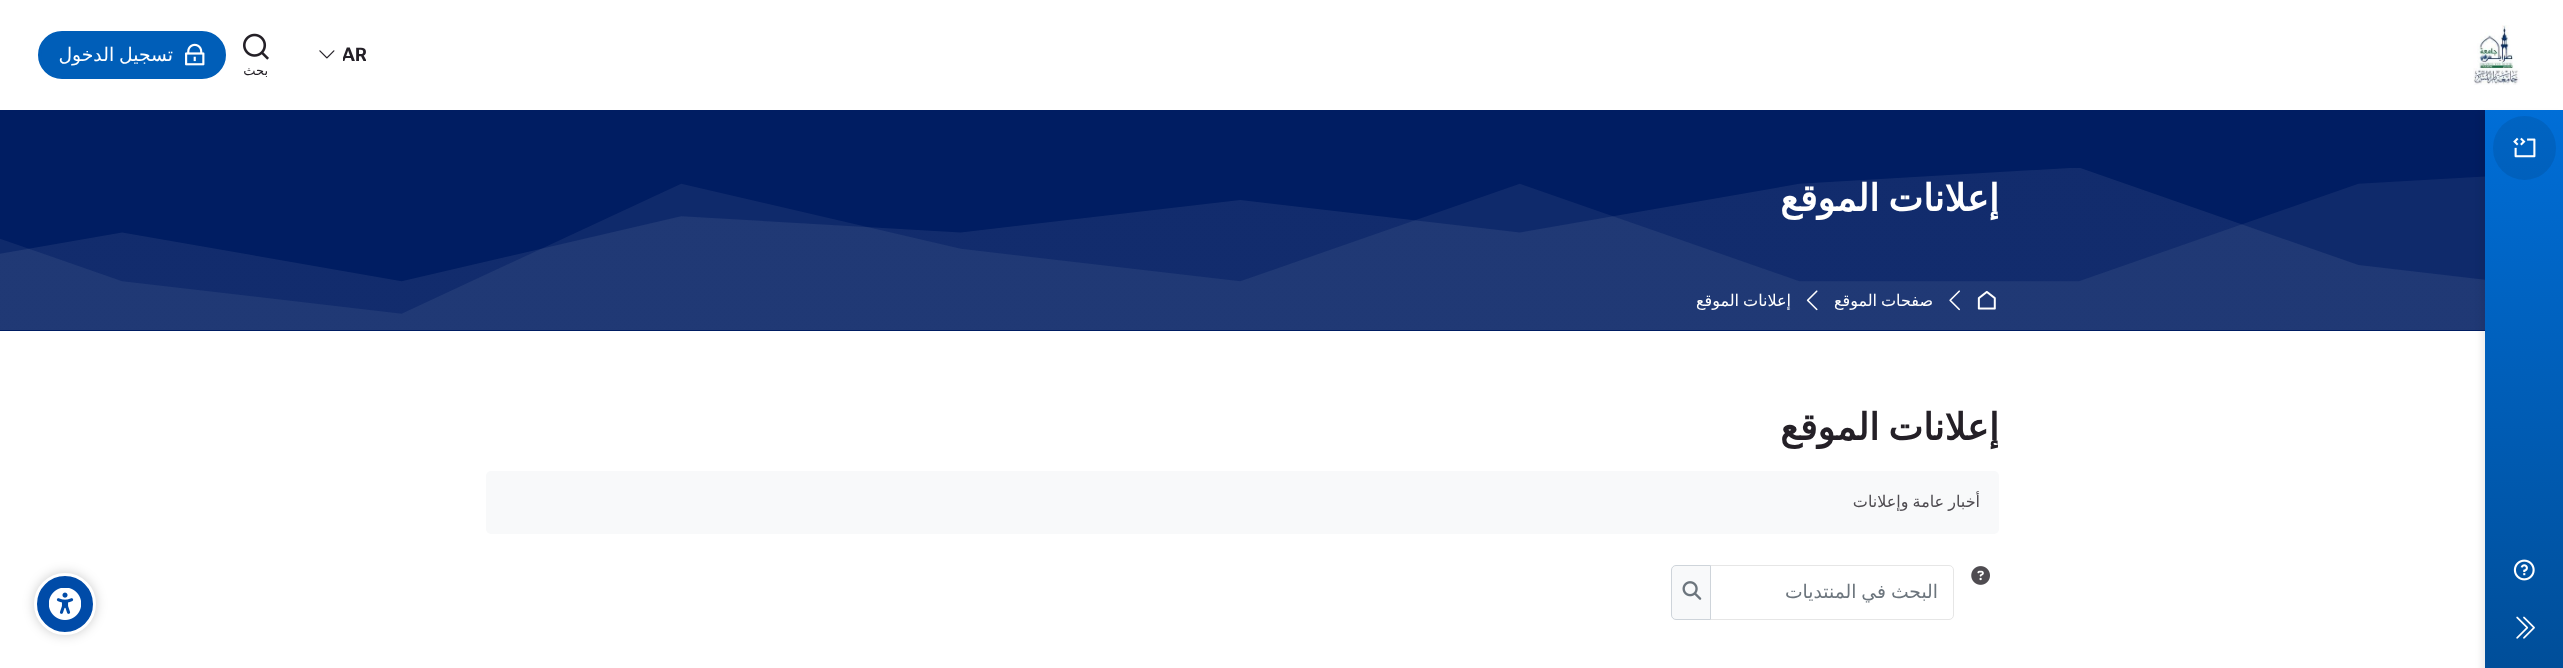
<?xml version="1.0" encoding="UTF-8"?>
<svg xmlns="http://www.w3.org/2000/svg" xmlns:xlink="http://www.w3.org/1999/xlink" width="2563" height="668">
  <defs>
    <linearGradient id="g1" gradientUnits="userSpaceOnUse" x1="2524" y1="110" x2="2524" y2="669"><stop offset="0" stop-color="#006ed7" /><stop offset="1" stop-color="#004e99" /></linearGradient>
    <clipPath id="clip1"><rect x="343" y="45" width="23" height="20" /></clipPath>
  </defs>
  <rect width="100%" height="100%" fill="#ffffff" />
  <image x="2473" y="25" width="47" height="60" xlink:href="image1.png" />
  <image x="319" y="50" width="16" height="9" xlink:href="image2.png" />
  <rect x="39.5" y="32.5" width="185" height="45" rx="22.5" fill="#005eb8" stroke="#005eb8" stroke-width="3" />
  <image x="185" y="43" width="20" height="23" xlink:href="image3.png" />
  <image x="243" y="33" width="26" height="27" xlink:href="image4.png" />
  <rect y="110" width="2485" height="221" fill="#001d62" />
  <image x="0" y="168" width="2485" height="162" xlink:href="image7.png" />
  <rect x="2481" y="114" width="79" height="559" fill="#000000" fill-opacity="0.07" filter="blur(3px)" />
  <rect x="2485" y="110" width="78" height="558" fill="url(#g1)" />
  <rect x="2493" y="116" width="63" height="64" rx="31.5" fill="#000000" fill-opacity="0.09" />
  <image x="2513" y="137" width="23" height="21" xlink:href="image5.png" />
  <image x="2513" y="559" width="22" height="22" xlink:href="image6.png" />
  <image x="1977" y="290" width="19" height="20" xlink:href="image8.png" />
  <image x="1949" y="290" width="11" height="21" xlink:href="image9.png" />
  <image x="1806" y="290" width="12" height="21" xlink:href="image10.png" />
  <rect x="486" y="471" width="1513" height="63" rx="5" fill="#f8f9fa" />
  <image x="1971" y="566" width="19" height="19" xlink:href="image11.png" />
  <path d="M 1710.5 565.5 h 238.5 c 2.5 0 4.5 2 4.5 4.5 v 45 c 0 2.5 -2 4.5 -4.5 4.5 h -238.5 z" fill="none" stroke="#e6e6e6" />
  <path d="M 1676 565.5 h 34.5 v 54 h -34.5 c -2.5 0 -4.5 -2 -4.5 -4.5 v -45 c 0 -2.5 2 -4.5 4.5 -4.5 z" fill="#f8f9fa" stroke="#ced4da" />
  <image x="1682" y="581" width="20" height="19" xlink:href="image12.png" />
  <image x="2516" y="616" width="19" height="23" xlink:href="image13.png" />
  <rect x="34" y="573" width="62" height="62" rx="31" fill="#000000" fill-opacity="0.2" filter="blur(6px)" />
  <circle cx="65" cy="604" r="29.5" fill="#004ba8" stroke="#ffffff" stroke-width="3" />
  <image x="49" y="588" width="32" height="32" xlink:href="image14.png" />
  <g clip-path="url(#clip1)">
    <text x="342" y="61" style="font-family: Roboto Flex; font-size: 18.75px; font-weight: bold; fill: #242027">AR</text>
  </g>
  <text x="173" y="61" word-spacing="-1" style="font-family: DejaVu Sans; font-size: 18.75px; direction: rtl; fill: #ffffff">تسجيل الدخول</text>
  <text x="268" y="75" style="font-family: DejaVu Sans; font-size: 13px; direction: rtl; fill: #242027">بحث</text>
  <text x="1999" y="211" word-spacing="-3" style="font-family: DejaVu Sans; font-size: 37px; font-weight: bold; direction: rtl; fill: #ffffff">إعلانات الموقع</text>
  <text x="1933" y="306" word-spacing="-1" style="font-family: DejaVu Sans; font-size: 16px; direction: rtl; fill: #ffffff">صفحات الموقع</text>
  <text x="1791" y="306" word-spacing="-1" style="font-family: DejaVu Sans; font-size: 16px; direction: rtl; fill: #ffffff">إعلانات الموقع</text>
  <text x="1999" y="440" word-spacing="-3" style="font-family: DejaVu Sans; font-size: 37px; font-weight: bold; direction: rtl; fill: #242027">إعلانات الموقع</text>
  <text x="1980" y="507" word-spacing="-1" style="font-family: DejaVu Sans; font-size: 16px; direction: rtl; fill: #4f4c51">أخبار عامة وإعلانات</text>
  <text x="1938" y="598" word-spacing="-1" style="font-family: DejaVu Sans; font-size: 18.75px; direction: rtl; fill: #6c757d">البحث في المنتديات</text>
</svg>
